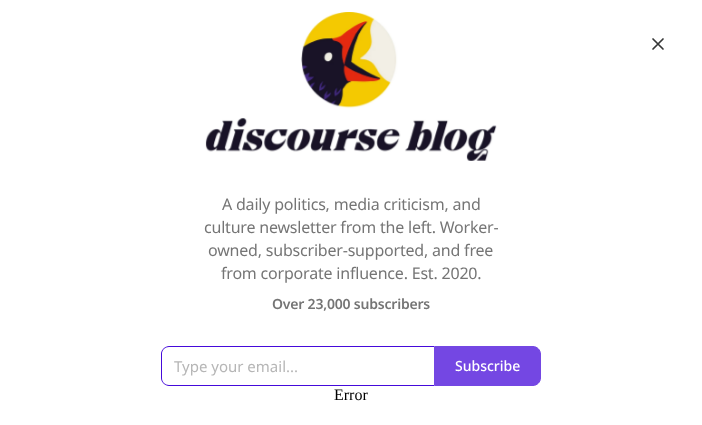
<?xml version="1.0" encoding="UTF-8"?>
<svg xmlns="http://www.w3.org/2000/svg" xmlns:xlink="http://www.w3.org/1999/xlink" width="702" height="425">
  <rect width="100%" height="100%" fill="#ffffff" />
  <image x="205" y="12" width="292" height="149" xlink:href="image1.png" />
  <path d="M 663 39 l -10 10 m 0 -10 l 10 10" fill="none" stroke="#363737" stroke-width="1.7" stroke-linecap="round" stroke-linejoin="round" />
  <path d="M 169 346 h 265 v 40 h -265 c -4 0 -8 -4 -8 -8 v -24 c 0 -4 4 -8 8 -8 z m 0 1 h 265 v 38 h -265 c -4 0 -7 -3 -7 -7 v -24 c 0 -4 3 -7 7 -7 z" fill="#450ada" fill-rule="evenodd" />
  <path d="M 434.5 346.5 h 98.5 c 4 0 7.5 3.5 7.5 7.5 v 24 c 0 4 -3.5 7.5 -7.5 7.5 h -98.5 z" fill="#7447e3" stroke="#7447e3" />
  <text x="222" y="210" style="font-family: Noto Sans; font-size: 16px; letter-spacing: -0.2px; fill: #757575">A daily politics, media criticism, and</text>
  <text x="204" y="233" style="font-family: Noto Sans; font-size: 16px; letter-spacing: -0.2px; fill: #757575">culture newsletter from the left. Worker-</text>
  <text x="208" y="256" style="font-family: Noto Sans; font-size: 16px; letter-spacing: -0.2px; fill: #757575">owned, subscriber-supported, and free</text>
  <text x="221" y="279" style="font-family: Noto Sans; font-size: 16px; letter-spacing: -0.2px; fill: #757575">from corporate influence. Est. 2020.</text>
  <text x="272" y="309" style="font-family: Noto Sans; font-size: 14px; font-weight: 600; letter-spacing: -0.2px; fill: #757575">Over 23,000 subscribers</text>
  <text x="174" y="372" style="font-family: Noto Sans; font-size: 15px; fill: #b6b6b6">Type your email...</text>
  <text x="455" y="371" style="font-family: Noto Sans; font-size: 14px; font-weight: 500; fill: #ffffff">Subscribe</text>
  <text x="334" y="400" style="font-family: Liberation Serif; font-size: 16px; fill: #000000">Error</text>
</svg>
